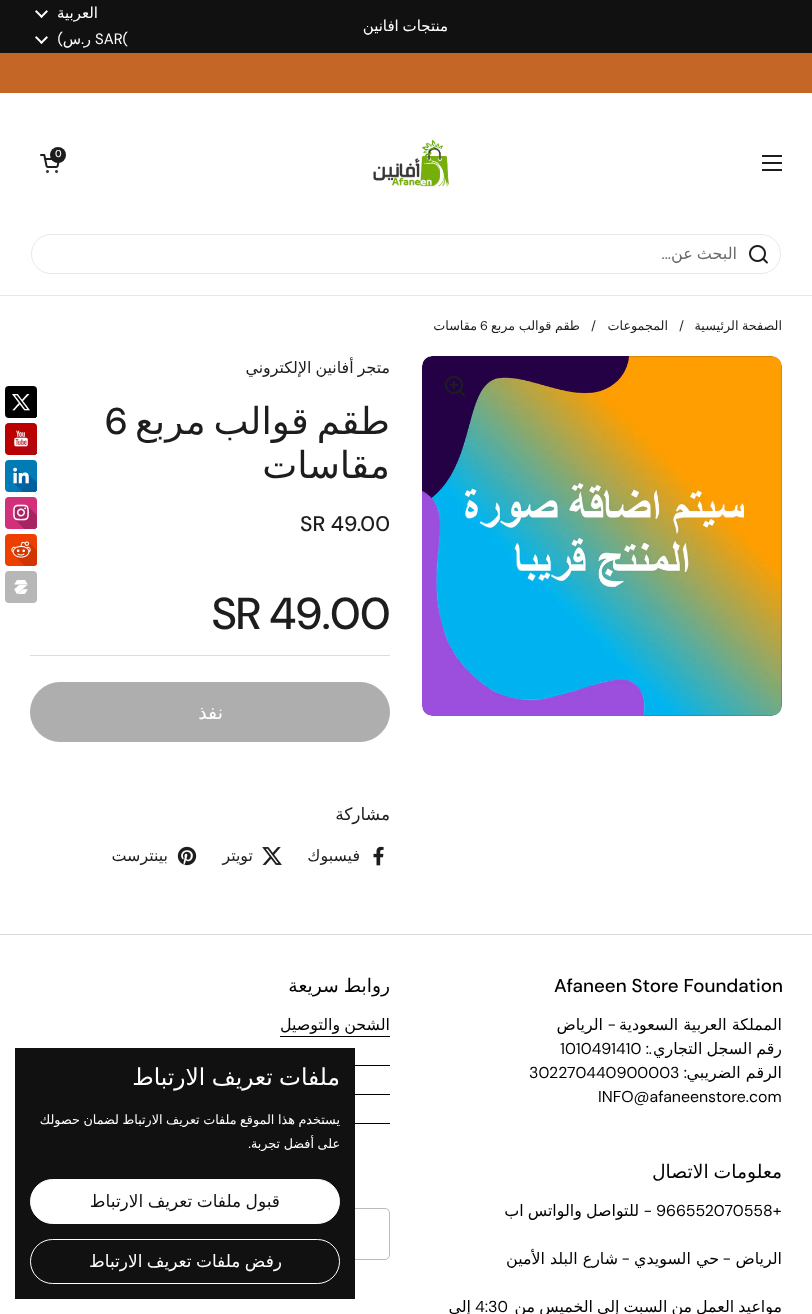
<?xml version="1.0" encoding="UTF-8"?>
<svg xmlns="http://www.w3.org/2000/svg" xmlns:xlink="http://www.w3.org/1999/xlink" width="812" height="1314">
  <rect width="100%" height="100%" fill="#ffffff" />
  <rect width="812" height="53" fill="#111111" />
  <image x="35" y="10" width="13" height="8" xlink:href="image1.png" />
  <image x="35" y="36" width="13" height="8" xlink:href="image1.png" />
  <rect y="53" width="812" height="40" fill="#c46626" />
  <image x="373" y="139" width="76" height="48" xlink:href="image2.png" />
  <image x="40" y="154" width="20" height="19" xlink:href="image3.png" />
  <circle cx="58" cy="155" r="8" fill="#1d1d1d" />
  <rect x="762" y="155" width="20" height="2" fill="#1d1d1d" />
  <rect x="762" y="162" width="20" height="2" fill="#1d1d1d" />
  <rect x="762" y="169" width="20" height="2" fill="#1d1d1d" />
  <rect y="295" width="812" height="1" fill="#e8e8e8" />
  <rect x="31.5" y="234.5" width="749" height="39" rx="19.5" fill="none" stroke="#e8e8e8" />
  <image x="749" y="245" width="19" height="19" xlink:href="image4.png" />
  <image x="422" y="356" width="360" height="360" xlink:href="image5.png" />
  <image x="445" y="376" width="21" height="21" xlink:href="image6.png" />
  <rect x="30" y="655" width="360" height="1" fill="#dddddd" />
  <rect x="30.5" y="682.5" width="359" height="59" rx="29.5" fill="#aeaeae" stroke="#aeaeae" />
  <image x="373" y="846" width="11" height="20" xlink:href="image7.png" />
  <image x="262" y="847" width="20" height="18" xlink:href="image8.png" />
  <image x="177" y="846" width="20" height="20" xlink:href="image9.png" />
  <image x="5" y="386" width="32" height="217" xlink:href="image10.png" />
  <rect y="934" width="812" height="1" fill="#d9d9d9" />
  <rect x="280" y="1036" width="110" height="1" fill="#000000" />
  <rect x="355" y="1065" width="35" height="1" fill="#000000" />
  <rect x="355" y="1094" width="35" height="1" fill="#000000" />
  <rect x="355" y="1123" width="35" height="1" fill="#000000" />
  <rect x="30.5" y="1208.5" width="359" height="51" rx="4.5" fill="none" stroke="#bbbbbb" />
  <rect x="15" y="1048" width="340" height="251" fill="#111111" />
  <rect x="30.5" y="1179.5" width="309" height="44" rx="22" fill="#ffffff" stroke="#ffffff" />
  <rect x="30.5" y="1239.5" width="309" height="44" rx="22" fill="none" stroke="#ffffff" />
  <text x="448" y="31" word-spacing="-1" style="font-family: DejaVu Sans; font-size: 15px; direction: rtl; fill: #ffffff">منتجات افانين</text>
  <text x="98" y="18" style="font-family: DejaVu Sans; font-size: 15px; direction: rtl; fill: #ffffff">العربية</text>
  <text x="95" y="44" style="font-family: DM Sans; font-size: 15px; fill: #ffffff">SAR(</text>
  <text x="91" y="44" style="font-family: DejaVu Sans; font-size: 15px; direction: rtl; fill: #ffffff">ر</text>
  <text x="84" y="44" style="font-family: DM Sans; font-size: 15px; direction: rtl; fill: #ffffff">.</text>
  <text x="81" y="44" style="font-family: DejaVu Sans; font-size: 15px; direction: rtl; fill: #ffffff">س</text>
  <text x="63" y="44" style="font-family: DM Sans; font-size: 15px; direction: rtl; fill: #ffffff">)</text>
  <text x="55" y="157" style="font-family: 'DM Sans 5'; font-size: 10px; font-weight: 500; fill: #ffffff">0</text>
  <text x="737" y="259" word-spacing="-1" style="font-family: DejaVu Sans; font-size: 16px; direction: rtl; fill: #6a6a6a">البحث عن</text>
  <text x="671" y="259" style="font-family: 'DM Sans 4'; font-size: 16px; direction: rtl; fill: #6a6a6a">...</text>
  <text x="782" y="330" word-spacing="-0.5" style="font-family: DejaVu Sans; font-size: 12.75px; direction: rtl; fill: #1d1d1d">الصفحة الرئيسية</text>
  <text x="679" y="330" style="font-family: 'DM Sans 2'; font-size: 12.75px; fill: #1d1d1d">/</text>
  <text x="668" y="330" style="font-family: DejaVu Sans; font-size: 12.75px; direction: rtl; fill: #1d1d1d">المجموعات</text>
  <text x="591" y="330" style="font-family: 'DM Sans 2'; font-size: 12.75px; fill: #1d1d1d">/</text>
  <text x="580" y="330" word-spacing="-0.5" style="font-family: DejaVu Sans; font-size: 12.75px; direction: rtl; fill: #1d1d1d">طقم قوالب مربع</text>
  <text x="480" y="330" style="font-family: 'DM Sans 2'; font-size: 12.75px; fill: #1d1d1d">6</text>
  <text x="477" y="330" style="font-family: DejaVu Sans; font-size: 12.75px; direction: rtl; fill: #1d1d1d">مقاسات</text>
  <text x="390" y="373" word-spacing="-1" style="font-family: DejaVu Sans; font-size: 15.9px; direction: rtl; fill: #1d1d1d">متجر أفانين الإلكتروني</text>
  <text x="390" y="434" word-spacing="-4" style="font-family: DejaVu Sans; font-size: 37.25px; direction: rtl; fill: #1d1d1d">طقم قوالب مربع</text>
  <text x="105" y="434" style="font-family: DM Sans; font-size: 37.25px; font-weight: 500; fill: #1d1d1d">6</text>
  <text x="390" y="478" style="font-family: DejaVu Sans; font-size: 37.25px; direction: rtl; fill: #1d1d1d">مقاسات</text>
  <text x="300" y="531" style="font-family: 'DM Sans 2'; font-size: 21.25px; font-weight: 500; fill: #1d1d1d">SR 49.00</text>
  <text x="212" y="629" style="font-family: 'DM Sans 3'; font-size: 44.5px; font-weight: 500; fill: #1d1d1d">SR 49.00</text>
  <text x="223" y="719" style="font-family: DejaVu Sans; font-size: 19px; direction: rtl; fill: #ffffff">نفذ</text>
  <text x="390" y="820" style="font-family: DejaVu Sans; font-size: 17px; direction: rtl; fill: #1d1d1d">مشاركة</text>
  <text x="360" y="861" style="font-family: DejaVu Sans; font-size: 15.9px; direction: rtl; fill: #1d1d1d">فيسبوك</text>
  <text x="253" y="861" style="font-family: DejaVu Sans; font-size: 15.9px; direction: rtl; fill: #1d1d1d">تويتر</text>
  <text x="168" y="861" style="font-family: DejaVu Sans; font-size: 15.9px; direction: rtl; fill: #1d1d1d">بينترست</text>
  <text x="554" y="992" style="font-family: 'DM Sans 4'; font-size: 18.75px; font-weight: 500; fill: #000000">Afaneen Store Foundation</text>
  <text x="782" y="1030" style="font-family: DejaVu Sans; font-size: 15.9px; direction: rtl; fill: #000000">المملكة العربية السعودية</text>
  <text x="616" y="1030" style="font-family: 'DM Sans 2'; font-size: 15.9px; direction: rtl; fill: #000000">-</text>
  <text x="603" y="1030" style="font-family: DejaVu Sans; font-size: 15.9px; direction: rtl; fill: #000000">الرياض</text>
  <text x="782" y="1054" word-spacing="-1" style="font-family: DejaVu Sans; font-size: 15.9px; direction: rtl; fill: #000000">رقم السجل التجاري</text>
  <text x="652" y="1054" style="font-family: 'DM Sans 3'; font-size: 15.9px; direction: rtl; fill: #000000">.:</text>
  <text x="560" y="1054" style="font-family: 'DM Sans 3'; font-size: 15.9px; fill: #000000">1010491410</text>
  <text x="782" y="1078" style="font-family: DejaVu Sans; font-size: 15.9px; direction: rtl; fill: #000000">الرقم الضريبي</text>
  <text x="687" y="1078" style="font-family: 'DM Sans 3'; font-size: 15.9px; direction: rtl; fill: #000000">:</text>
  <text x="529" y="1078" style="font-family: 'DM Sans 3'; font-size: 15.9px; fill: #000000">302270440900003</text>
  <text x="598" y="1102" style="font-family: 'DM Sans 3'; font-size: 15.9px; fill: #000000">INFO@afaneenstore.com</text>
  <text x="390" y="992" word-spacing="-1" style="font-family: DejaVu Sans; font-size: 18.75px; direction: rtl; fill: #000000">روابط سريعة</text>
  <text x="390" y="1030" word-spacing="-1" style="font-family: DejaVu Sans; font-size: 15.9px; direction: rtl; fill: #000000">الشحن والتوصيل</text>
  <text x="782" y="1178" word-spacing="-1" style="font-family: DejaVu Sans; font-size: 18.75px; direction: rtl; fill: #000000">معلومات الاتصال</text>
  <text x="656" y="1216" style="font-family: 'DM Sans 3'; font-size: 15.9px; fill: #000000">966552070558+</text>
  <text x="652" y="1216" style="font-family: 'DM Sans 3'; font-size: 15.9px; direction: rtl; fill: #000000">-</text>
  <text x="639" y="1216" word-spacing="-1" style="font-family: DejaVu Sans; font-size: 15.9px; direction: rtl; fill: #000000">للتواصل والواتس اب</text>
  <text x="782" y="1264" style="font-family: DejaVu Sans; font-size: 15.9px; direction: rtl; fill: #000000">الرياض</text>
  <text x="731" y="1264" style="font-family: 'DM Sans 2'; font-size: 15.9px; direction: rtl; fill: #000000">-</text>
  <text x="719" y="1264" style="font-family: DejaVu Sans; font-size: 15.9px; direction: rtl; fill: #000000">حي السويدي</text>
  <text x="630" y="1264" style="font-family: 'DM Sans 2'; font-size: 15.9px; direction: rtl; fill: #000000">-</text>
  <text x="618" y="1264" style="font-family: DejaVu Sans; font-size: 15.9px; direction: rtl; fill: #000000">شارع البلد الأمين</text>
  <text x="782" y="1312" word-spacing="-1" style="font-family: DejaVu Sans; font-size: 15.9px; direction: rtl; fill: #000000">مواعيد العمل من السبت إلى الخميس من</text>
  <text x="475" y="1312" style="font-family: 'DM Sans 2'; font-size: 15.9px; fill: #000000">4:30</text>
  <text x="471" y="1312" style="font-family: DejaVu Sans; font-size: 15.9px; direction: rtl; fill: #000000">إلى</text>
  <text x="340" y="1085" word-spacing="-1" style="font-family: DejaVu Sans; font-size: 23.25px; direction: rtl; fill: #ffffff">ملفات تعريف الارتباط</text>
  <text x="340" y="1124" word-spacing="-0.5" style="font-family: DejaVu Sans; font-size: 12.75px; direction: rtl; fill: #ffffff">يستخدم هذا الموقع ملفات تعريف الارتباط لضمان حصولك</text>
  <text x="340" y="1148" word-spacing="-0.5" style="font-family: DejaVu Sans; font-size: 12.75px; direction: rtl; fill: #ffffff">على أفضل تجربة</text>
  <text x="251" y="1148" style="font-family: 'DM Sans 2'; font-size: 12.75px; direction: rtl; fill: #ffffff">.</text>
  <text x="280" y="1207" word-spacing="-1" style="font-family: DejaVu Sans; font-size: 17px; direction: rtl; fill: #111111">قبول ملفات تعريف الارتباط</text>
  <text x="282" y="1267" word-spacing="-1" style="font-family: DejaVu Sans; font-size: 17px; direction: rtl; fill: #ffffff">رفض ملفات تعريف الارتباط</text>
</svg>
